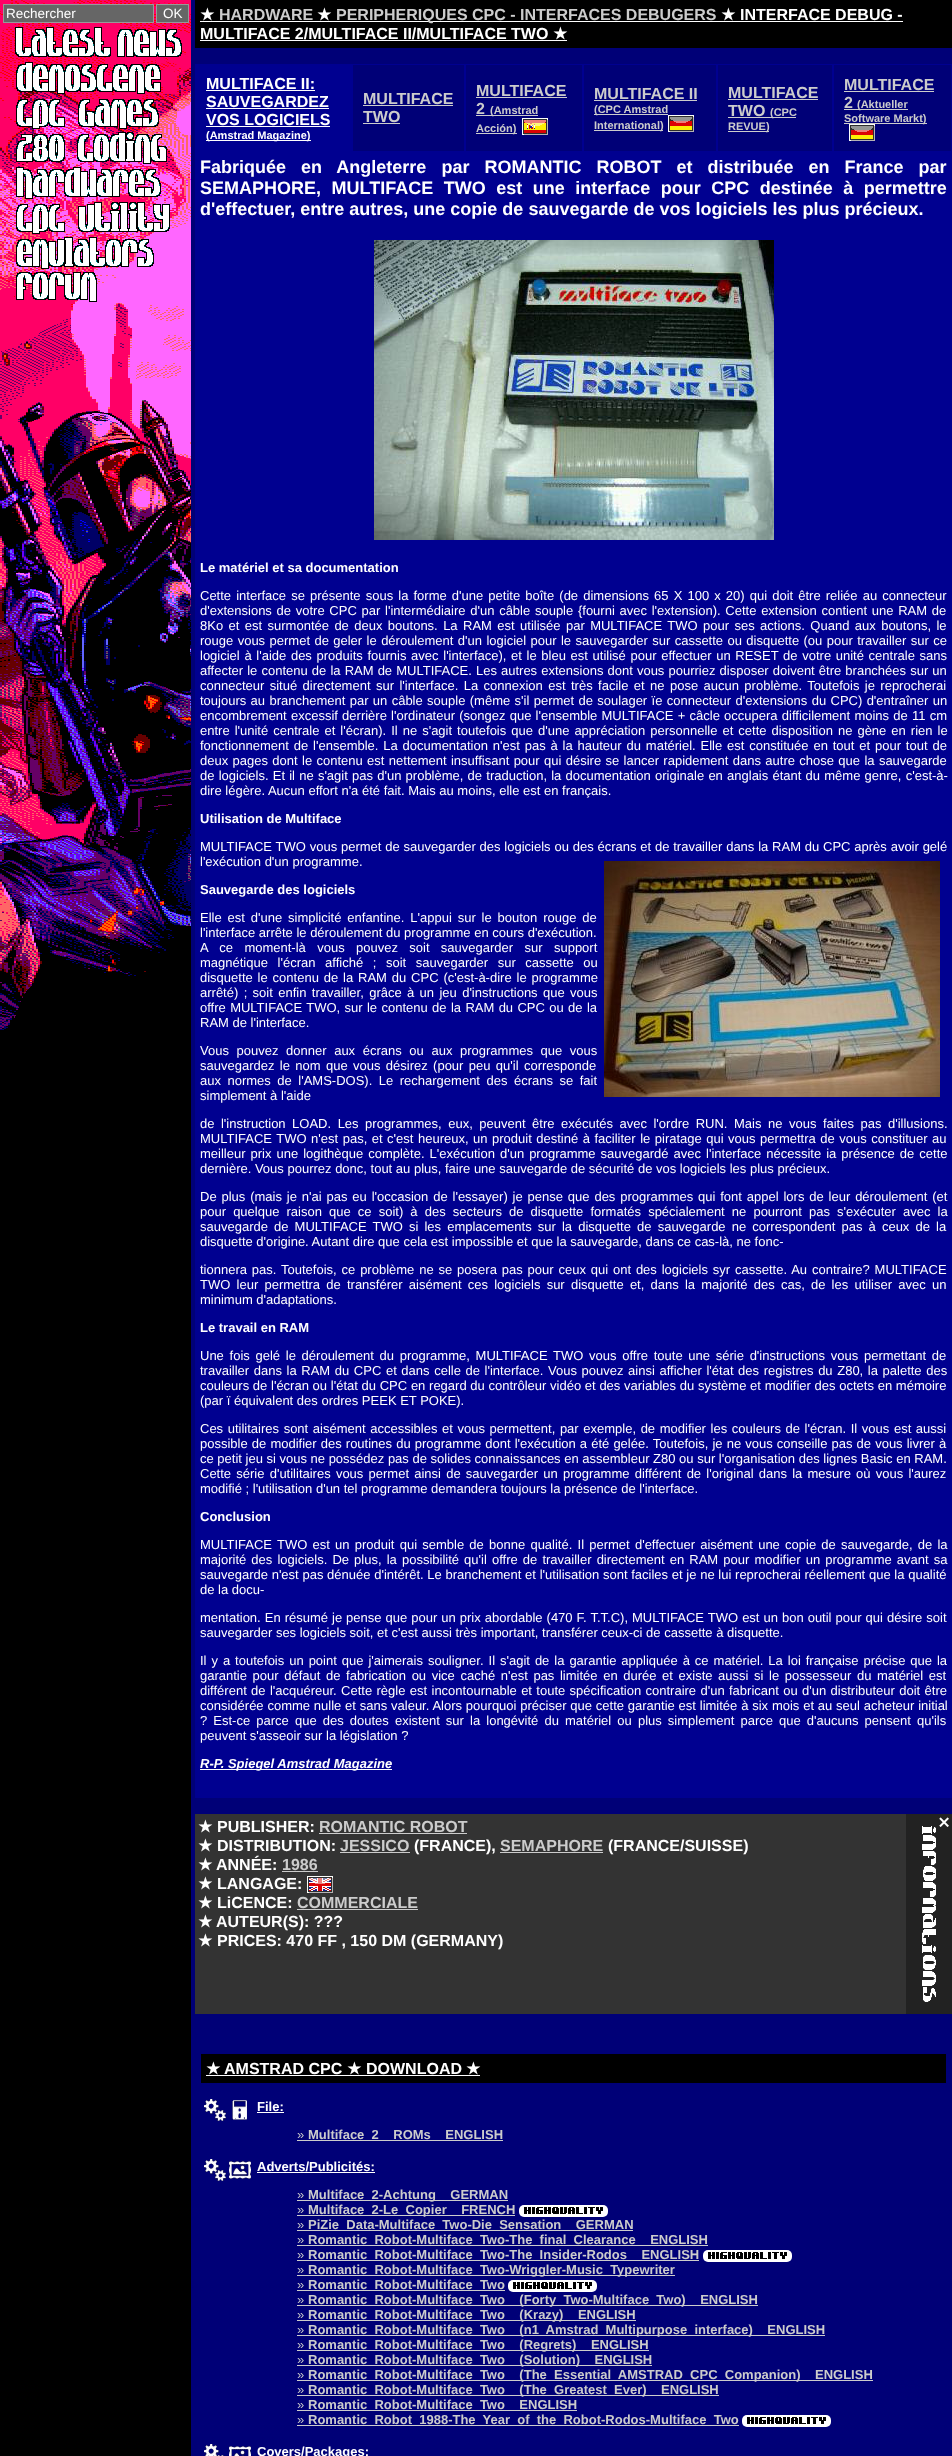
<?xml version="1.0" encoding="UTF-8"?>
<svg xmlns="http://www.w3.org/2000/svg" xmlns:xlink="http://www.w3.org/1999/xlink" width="952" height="2456">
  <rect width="100%" height="100%" fill="#000077" />
  <image x="0" y="0" width="191" height="2456" xlink:href="image1.png" />
  <rect x="3.5" y="4.5" width="150" height="18" fill="#666666" stroke="#999999" />
  <rect x="156.5" y="4.5" width="32" height="18" fill="#666666" stroke="#999999" />
  <image x="15" y="27" width="167" height="30" xlink:href="image2.png" />
  <image x="16" y="62" width="145" height="32" xlink:href="image3.png" />
  <image x="16" y="99" width="143" height="30" xlink:href="image4.png" />
  <image x="16" y="132" width="151" height="32" xlink:href="image5.png" />
  <image x="16" y="167" width="145" height="32" xlink:href="image6.png" />
  <image x="16" y="202" width="154" height="32" xlink:href="image7.png" />
  <image x="16" y="237" width="138" height="32" xlink:href="image8.png" />
  <image x="16" y="272" width="81" height="30" xlink:href="image9.png" />
  <rect x="195" width="757" height="48" fill="#000000" />
  <rect x="200" y="21" width="703" height="1" fill="#ffffff" />
  <rect x="200" y="40" width="367" height="1" fill="#ffffff" />
  <rect x="195" y="64" width="157" height="88" fill="#000090" />
  <rect x="206" y="90" width="109" height="1" fill="#ffffff" />
  <rect x="206" y="108" width="123" height="1" fill="#ffffff" />
  <rect x="206" y="126" width="124" height="1" fill="#ffffff" />
  <rect x="206" y="140" width="105" height="1" fill="#ffffff" />
  <rect x="352.5" y="64.5" width="112" height="87" fill="none" stroke="#000090" />
  <rect x="363" y="105" width="90" height="1" fill="#cccccc" />
  <rect x="363" y="123" width="37" height="1" fill="#cccccc" />
  <rect x="465.5" y="64.5" width="117" height="87" fill="none" stroke="#000090" />
  <rect x="476" y="97" width="91" height="1" fill="#cccccc" />
  <rect x="476" y="115" width="62" height="1" fill="#cccccc" />
  <rect x="476" y="133" width="41" height="1" fill="#cccccc" />
  <image x="522" y="118" width="26" height="17" xlink:href="image10.png" />
  <rect x="583.5" y="64.5" width="133" height="87" fill="none" stroke="#000090" />
  <rect x="594" y="100" width="103" height="1" fill="#cccccc" />
  <rect x="594" y="114" width="74" height="1" fill="#cccccc" />
  <rect x="594" y="130" width="69" height="1" fill="#cccccc" />
  <image x="668" y="115" width="26" height="17" xlink:href="image11.png" />
  <rect x="717.5" y="64.5" width="115" height="87" fill="none" stroke="#000090" />
  <rect x="728" y="99" width="90" height="1" fill="#cccccc" />
  <rect x="728" y="117" width="68" height="1" fill="#cccccc" />
  <rect x="728" y="131" width="41" height="1" fill="#cccccc" />
  <rect x="833.5" y="64.5" width="118" height="87" fill="none" stroke="#000090" />
  <rect x="844" y="91" width="90" height="1" fill="#cccccc" />
  <rect x="844" y="109" width="64" height="1" fill="#cccccc" />
  <rect x="844" y="123" width="83" height="1" fill="#cccccc" />
  <rect x="195" y="152" width="757" height="1646" fill="#000090" />
  <image x="374" y="240" width="400" height="300" xlink:href="image12.png" />
  <image x="604" y="861" width="336" height="236" xlink:href="image13.png" />
  <rect x="200" y="1769" width="192" height="1" fill="#ffffff" />
  <rect x="195" y="1814" width="711" height="200" fill="#333333" />
  <rect x="906" y="1814" width="46" height="200" fill="#222222" />
  <image x="922" y="1826" width="14" height="176" xlink:href="image14.png" />
  <rect x="319" y="1833" width="148" height="1" fill="#cccccc" />
  <rect x="340" y="1852" width="70" height="1" fill="#cccccc" />
  <rect x="500" y="1852" width="103" height="1" fill="#cccccc" />
  <rect x="282" y="1871" width="36" height="1" fill="#cccccc" />
  <image x="307" y="1876" width="26" height="17" xlink:href="image15.png" />
  <rect x="297" y="1909" width="121" height="1" fill="#cccccc" />
  <image x="939" y="1817" width="10" height="10" xlink:href="image16.png" />
  <rect x="201" y="2054" width="745" height="29" fill="#000000" />
  <rect x="206" y="2075" width="274" height="1" fill="#ffffff" />
  <image x="204" y="2099" width="43" height="22" xlink:href="image17.png" />
  <rect x="257" y="2112" width="27" height="1" fill="#ffffff" />
  <rect x="297" y="2140" width="206" height="1" fill="#cccccc" />
  <image x="204" y="2159" width="47" height="22" xlink:href="image18.png" />
  <rect x="257" y="2172" width="118" height="1" fill="#ffffff" />
  <rect x="297" y="2200" width="211" height="1" fill="#cccccc" />
  <rect x="519" y="2205" width="89" height="12" rx="5" fill="#ffffff" />
  <rect x="297" y="2215" width="218" height="1" fill="#cccccc" />
  <image x="524" y="2207" width="79" height="7" xlink:href="image19.png" />
  <rect x="297" y="2230" width="336" height="1" fill="#cccccc" />
  <rect x="297" y="2245" width="411" height="1" fill="#cccccc" />
  <rect x="703" y="2250" width="89" height="12" rx="5" fill="#ffffff" />
  <rect x="297" y="2260" width="402" height="1" fill="#cccccc" />
  <image x="708" y="2252" width="79" height="7" xlink:href="image19.png" />
  <rect x="297" y="2275" width="378" height="1" fill="#cccccc" />
  <rect x="508" y="2280" width="89" height="12" rx="5" fill="#ffffff" />
  <rect x="297" y="2290" width="208" height="1" fill="#cccccc" />
  <image x="513" y="2282" width="79" height="7" xlink:href="image19.png" />
  <rect x="297" y="2305" width="461" height="1" fill="#cccccc" />
  <rect x="297" y="2320" width="339" height="1" fill="#cccccc" />
  <rect x="297" y="2335" width="528" height="1" fill="#cccccc" />
  <rect x="297" y="2350" width="352" height="1" fill="#cccccc" />
  <rect x="297" y="2365" width="355" height="1" fill="#cccccc" />
  <rect x="297" y="2380" width="576" height="1" fill="#cccccc" />
  <rect x="297" y="2395" width="422" height="1" fill="#cccccc" />
  <rect x="297" y="2410" width="280" height="1" fill="#cccccc" />
  <rect x="742" y="2415" width="89" height="12" rx="5" fill="#ffffff" />
  <rect x="297" y="2425" width="442" height="1" fill="#cccccc" />
  <image x="747" y="2417" width="79" height="7" xlink:href="image19.png" />
  <image x="204" y="2444" width="47" height="12" xlink:href="image20.png" />
  <text x="6" y="18" style="font-family: Liberation Sans; font-size: 13.5px; fill: #ffffff">Rechercher</text>
  <text x="163" y="18" style="font-family: Liberation Sans; font-size: 13.5px; fill: #ffffff">OK</text>
  <text x="200" y="20" style="font-family: DejaVu Sans; font-size: 16px; font-weight: bold; fill: #ffffff">★</text>
  <text x="219" y="20" style="font-family: Liberation Sans; font-size: 16px; font-weight: bold; fill: #cccccc">HARDWARE</text>
  <text x="317" y="20" style="font-family: DejaVu Sans; font-size: 16px; font-weight: bold; fill: #ffffff">★</text>
  <text x="336" y="20" style="font-family: Liberation Sans; font-size: 16px; font-weight: bold; fill: #cccccc">PERIPHERIQUES CPC - INTERFACES DEBUGERS</text>
  <text x="721" y="20" style="font-family: DejaVu Sans; font-size: 16px; font-weight: bold; fill: #ffffff">★</text>
  <text x="740" y="20" style="font-family: Liberation Sans; font-size: 16px; font-weight: bold; fill: #ffffff">INTERFACE DEBUG -</text>
  <text x="200" y="39" style="font-family: Liberation Sans; font-size: 16px; font-weight: bold; fill: #ffffff">MULTIFACE 2/MULTIFACE II/MULTIFACE TWO</text>
  <text x="553" y="39" style="font-family: DejaVu Sans; font-size: 16px; font-weight: bold; fill: #ffffff">★</text>
  <text x="206" y="89" style="font-family: Liberation Sans; font-size: 16px; font-weight: bold; fill: #ffffff">MULTIFACE II:</text>
  <text x="206" y="107" style="font-family: Liberation Sans; font-size: 16px; font-weight: bold; fill: #ffffff">SAUVEGARDEZ</text>
  <text x="206" y="125" style="font-family: Liberation Sans; font-size: 16px; font-weight: bold; fill: #ffffff">VOS LOGICIELS</text>
  <text x="206" y="139" style="font-family: Liberation Sans; font-size: 11px; font-weight: bold; fill: #ffffff">(Amstrad Magazine)</text>
  <text x="363" y="104" style="font-family: Liberation Sans; font-size: 16px; font-weight: bold; fill: #cccccc">MULTIFACE</text>
  <text x="363" y="122" style="font-family: Liberation Sans; font-size: 16px; font-weight: bold; fill: #cccccc">TWO</text>
  <text x="476" y="96" style="font-family: Liberation Sans; font-size: 16px; font-weight: bold; fill: #cccccc">MULTIFACE</text>
  <text x="476" y="114" style="font-family: Liberation Sans; font-size: 16px; font-weight: bold; fill: #cccccc">2</text>
  <text x="490" y="114" style="font-family: Liberation Sans; font-size: 11px; font-weight: bold; fill: #cccccc">(Amstrad</text>
  <text x="476" y="132" style="font-family: Liberation Sans; font-size: 11px; font-weight: bold; fill: #cccccc">Acción)</text>
  <text x="594" y="99" style="font-family: Liberation Sans; font-size: 16px; font-weight: bold; fill: #cccccc">MULTIFACE II</text>
  <text x="594" y="113" style="font-family: Liberation Sans; font-size: 11px; font-weight: bold; fill: #cccccc">(CPC Amstrad</text>
  <text x="594" y="129" style="font-family: Liberation Sans; font-size: 11px; font-weight: bold; fill: #cccccc">International)</text>
  <text x="728" y="98" style="font-family: Liberation Sans; font-size: 16px; font-weight: bold; fill: #cccccc">MULTIFACE</text>
  <text x="728" y="116" style="font-family: Liberation Sans; font-size: 16px; font-weight: bold; fill: #cccccc">TWO</text>
  <text x="770" y="116" style="font-family: Liberation Sans; font-size: 11px; font-weight: bold; fill: #cccccc">(CPC</text>
  <text x="728" y="130" style="font-family: Liberation Sans; font-size: 11px; font-weight: bold; fill: #cccccc">REVUE)</text>
  <text x="844" y="90" style="font-family: Liberation Sans; font-size: 16px; font-weight: bold; fill: #cccccc">MULTIFACE</text>
  <text x="844" y="108" style="font-family: Liberation Sans; font-size: 16px; font-weight: bold; fill: #cccccc">2</text>
  <text x="857" y="108" style="font-family: Liberation Sans; font-size: 11px; font-weight: bold; fill: #cccccc">(Aktueller</text>
  <text x="844" y="122" style="font-family: Liberation Sans; font-size: 11px; font-weight: bold; fill: #cccccc">Software Markt)</text>
  <image x="849" y="124" width="26" height="17" xlink:href="image11.png" />
  <text x="200" y="173" word-spacing="10" style="font-family: Liberation Sans; font-size: 18px; font-weight: bold; fill: #ffffff">Fabriquée en Angleterre par ROMANTIC ROBOT et distribuée en France par</text>
  <text x="200" y="194" word-spacing="5.5" style="font-family: Liberation Sans; font-size: 18px; font-weight: bold; fill: #ffffff">SEMAPHORE, MULTIFACE TWO est une interface pour CPC destinée à permettre</text>
  <text x="200" y="215" style="font-family: Liberation Sans; font-size: 18px; font-weight: bold; fill: #ffffff">d'effectuer, entre autres, une copie de sauvegarde de vos logiciels les plus précieux.</text>
  <text x="200" y="572" style="font-family: Liberation Sans; font-size: 13px; font-weight: bold; fill: #ffffff">Le matériel et sa documentation</text>
  <text x="200" y="600" word-spacing="1.5" style="font-family: Liberation Sans; font-size: 13px; fill: #ffffff">Cette interface se présente sous la forme d'une petite boîte (de dimensions 65 X 100 x 20) qui doit être reliée au connecteur</text>
  <text x="200" y="615" word-spacing="1.1" style="font-family: Liberation Sans; font-size: 13px; fill: #ffffff">d'extensions de votre CPC par l'intermédiaire d'un câble souple {fourni avec l'extension). Cette extension contient une RAM de</text>
  <text x="200" y="630" word-spacing="1.8" style="font-family: Liberation Sans; font-size: 13px; fill: #ffffff">8Ko et est surmontée de deux boutons. La RAM est utilisée par MULTIFACE TWO pour ses actions. Quand aux boutons, le</text>
  <text x="200" y="645" word-spacing="0.8" style="font-family: Liberation Sans; font-size: 13px; fill: #ffffff">rouge vous permet de geler le déroulement d'un logiciel pour le sauvegarder sur cassette ou disquette (ou pour travailler sur ce</text>
  <text x="200" y="660" word-spacing="1.05" style="font-family: Liberation Sans; font-size: 13px; fill: #ffffff">logiciel à l'aide des produits fournis avec l'interface), et le bleu est utilisé pour effectuer un RESET de votre unité centrale sans</text>
  <text x="200" y="675" word-spacing="0.5" style="font-family: Liberation Sans; font-size: 13px; fill: #ffffff">affecter le contenu de la RAM de MULTIFACE. Les autres extensions dont vous pourriez disposer doivent être branchées sur un</text>
  <text x="200" y="690" word-spacing="1.8" style="font-family: Liberation Sans; font-size: 13px; fill: #ffffff">connecteur situé directement sur l'interface. La connexion est très facile et ne pose aucun problème. Toutefois je reprocherai</text>
  <text x="200" y="705" word-spacing="0.75" style="font-family: Liberation Sans; font-size: 13px; fill: #ffffff">toujours au branchement par un câble souple (même s'il permet de soulager ïe connecteur d'extensions du CPC) d'entraîner un</text>
  <text x="200" y="720" word-spacing="0.6" style="font-family: Liberation Sans; font-size: 13px; fill: #ffffff">encombrement excessif derrière l'ordinateur (songez que l'ensemble MULTIFACE + câcle occupera difficilement moins de 11 cm</text>
  <text x="200" y="735" word-spacing="1.4" style="font-family: Liberation Sans; font-size: 13px; fill: #ffffff">entre l'unité centrale et l'écran). Il ne s'agit toutefois que d'une appréciation personnelle et cette disposition ne gène en rien le</text>
  <text x="200" y="750" word-spacing="1.25" style="font-family: Liberation Sans; font-size: 13px; fill: #ffffff">fonctionnement de l'ensemble. La documentation n'est pas à la hauteur du matériel. Elle est constituée en tout et pour tout de</text>
  <text x="200" y="765" word-spacing="0.75" style="font-family: Liberation Sans; font-size: 13px; fill: #ffffff">deux pages dont le contenu est nettement insuffisant pour qui désire se lancer rapidement dans autre chose que la sauvegarde</text>
  <text x="200" y="780" word-spacing="0.6" style="font-family: Liberation Sans; font-size: 13px; fill: #ffffff">de logiciels. Et il ne s'agit pas d'un problème, de traduction, la documentation originale en anglais étant du même genre, c'est-à-</text>
  <text x="200" y="795" style="font-family: Liberation Sans; font-size: 13px; fill: #ffffff">dire légère. Aucun effort n'a été fait. Mais au moins, elle est en français.</text>
  <text x="200" y="823" style="font-family: Liberation Sans; font-size: 13px; font-weight: bold; fill: #ffffff">Utilisation de Multiface</text>
  <text x="200" y="851" word-spacing="0.2" style="font-family: Liberation Sans; font-size: 13px; fill: #ffffff">MULTIFACE TWO vous permet de sauvegarder des logiciels ou des écrans et de travailler dans la RAM du CPC après avoir gelé</text>
  <text x="200" y="866" style="font-family: Liberation Sans; font-size: 13px; fill: #ffffff">l'exécution d'un programme.</text>
  <text x="200" y="894" style="font-family: Liberation Sans; font-size: 13px; font-weight: bold; fill: #ffffff">Sauvegarde des logiciels</text>
  <text x="200" y="922" word-spacing="2.25" style="font-family: Liberation Sans; font-size: 13px; fill: #ffffff">Elle est d'une simplicité enfantine. L'appui sur le bouton rouge de</text>
  <text x="200" y="937" style="font-family: Liberation Sans; font-size: 13px; fill: #ffffff">l'interface arrête le déroulement du programme en cours d'exécution.</text>
  <text x="200" y="952" word-spacing="7.75" style="font-family: Liberation Sans; font-size: 13px; fill: #ffffff">A ce moment-là vous pouvez soit sauvegarder sur support</text>
  <text x="200" y="967" word-spacing="6" style="font-family: Liberation Sans; font-size: 13px; fill: #ffffff">magnétique l'écran affiché ; soit sauvegarder sur cassette ou</text>
  <text x="200" y="982" word-spacing="1.25" style="font-family: Liberation Sans; font-size: 13px; fill: #ffffff">disquette le contenu de la RAM du CPC (c'est-à-dire le programme</text>
  <text x="200" y="997" word-spacing="1.75" style="font-family: Liberation Sans; font-size: 13px; fill: #ffffff">arrêté) ; soit enfin travailler, grâce à un jeu d'instructions que vous</text>
  <text x="200" y="1012" word-spacing="0.75" style="font-family: Liberation Sans; font-size: 13px; fill: #ffffff">offre MULTIFACE TWO, sur le contenu de la RAM du CPC ou de la</text>
  <text x="200" y="1027" style="font-family: Liberation Sans; font-size: 13px; fill: #ffffff">RAM de l'interface.</text>
  <text x="200" y="1055" word-spacing="4" style="font-family: Liberation Sans; font-size: 13px; fill: #ffffff">Vous pouvez donner aux écrans ou aux programmes que vous</text>
  <text x="200" y="1070" word-spacing="1.75" style="font-family: Liberation Sans; font-size: 13px; fill: #ffffff">sauvegardez le nom que vous désirez (pour peu qu'il corresponde</text>
  <text x="200" y="1085" word-spacing="2.9" style="font-family: Liberation Sans; font-size: 13px; fill: #ffffff">aux normes de l'AMS-DOS). Le rechargement des écrans se fait</text>
  <text x="200" y="1100" style="font-family: Liberation Sans; font-size: 13px; fill: #ffffff">simplement à l'aide</text>
  <text x="200" y="1128" word-spacing="2.9" style="font-family: Liberation Sans; font-size: 13px; fill: #ffffff">de l'instruction LOAD. Les programmes, eux, peuvent être exécutés avec l'ordre RUN. Mais ne vous faites pas d'illusions.</text>
  <text x="200" y="1143" word-spacing="0.9" style="font-family: Liberation Sans; font-size: 13px; fill: #ffffff">MULTIFACE TWO n'est pas, et c'est heureux, un produit destiné à faciliter le piratage qui vous permettra de vous constituer au</text>
  <text x="200" y="1158" word-spacing="1.4" style="font-family: Liberation Sans; font-size: 13px; fill: #ffffff">meilleur prix une logithèque complète. L'exécution d'un programme sauvegardé avec l'interface nécessite ia présence de cette</text>
  <text x="200" y="1173" style="font-family: Liberation Sans; font-size: 13px; fill: #ffffff">dernière. Vous pourrez donc, tout au plus, faire une sauvegarde de sécurité de vos logiciels les plus précieux.</text>
  <text x="200" y="1201" word-spacing="1.25" style="font-family: Liberation Sans; font-size: 13px; fill: #ffffff">De plus (mais je n'ai pas eu l'occasion de l'essayer) je pense que des programmes qui font appel lors de leur déroulement (et</text>
  <text x="200" y="1216" word-spacing="3.5" style="font-family: Liberation Sans; font-size: 13px; fill: #ffffff">pour quelque raison que ce soit) à des secteurs de disquette formatés spécialement ne pourront pas s'exécuter avec la</text>
  <text x="200" y="1231" word-spacing="2.5" style="font-family: Liberation Sans; font-size: 13px; fill: #ffffff">sauvegarde de MULTIFACE TWO si les emplacements sur la disquette de sauvegarde ne correspondent pas à ceux de la</text>
  <text x="200" y="1246" style="font-family: Liberation Sans; font-size: 13px; fill: #ffffff">disquette d'origine. Autant dire que cela est impossible et que la sauvegarde, dans ce cas-là, ne fonc-</text>
  <text x="200" y="1274" word-spacing="1.25" style="font-family: Liberation Sans; font-size: 13px; fill: #ffffff">tionnera pas. Toutefois, ce problème ne se posera pas pour ceux qui ont des logiciels syr cassette. Au contraire? MULTIFACE</text>
  <text x="200" y="1289" word-spacing="2.6" style="font-family: Liberation Sans; font-size: 13px; fill: #ffffff">TWO leur permettra de transférer aisément ces logiciels sur disquette et, dans la majorité des cas, de les utiliser avec un</text>
  <text x="200" y="1304" style="font-family: Liberation Sans; font-size: 13px; fill: #ffffff">minimum d'adaptations.</text>
  <text x="200" y="1332" style="font-family: Liberation Sans; font-size: 13px; font-weight: bold; fill: #ffffff">Le travail en RAM</text>
  <text x="200" y="1360" word-spacing="2.1" style="font-family: Liberation Sans; font-size: 13px; fill: #ffffff">Une fois gelé le déroulement du programme, MULTIFACE TWO vous offre toute une série d'instructions vous permettant de</text>
  <text x="200" y="1375" word-spacing="1" style="font-family: Liberation Sans; font-size: 13px; fill: #ffffff">travailler dans la RAM du CPC et dans celle de l'interface. Vous pouvez ainsi afficher l'état des registres du Z80, la palette des</text>
  <text x="200" y="1390" word-spacing="0.1" style="font-family: Liberation Sans; font-size: 13px; fill: #ffffff">couleurs de l'écran ou l'état du CPC en regard du contrôleur vidéo et des variables du système et modifier des octets en mémoire</text>
  <text x="200" y="1405" style="font-family: Liberation Sans; font-size: 13px; fill: #ffffff">(par ï équivalent des ordres PEEK ET POKE).</text>
  <text x="200" y="1433" word-spacing="1" style="font-family: Liberation Sans; font-size: 13px; fill: #ffffff">Ces utilitaires sont aisément accessibles et vous permettent, par exemple, de modifier les couleurs de l'écran. Il vous est aussi</text>
  <text x="200" y="1448" word-spacing="0.5" style="font-family: Liberation Sans; font-size: 13px; fill: #ffffff">possible de modifier des routines du programme dont l'exécution a été gelée. Toutefois, je ne vous conseille pas de vous livrer à</text>
  <text x="200" y="1463" style="font-family: Liberation Sans; font-size: 13px; fill: #ffffff">ce petit jeu si vous ne possédez pas de solides connaissances en assembleur Z80 ou sur l'organisation des lignes Basic en RAM.</text>
  <text x="200" y="1478" word-spacing="1.6" style="font-family: Liberation Sans; font-size: 13px; fill: #ffffff">Cette série d'utilitaires vous permet ainsi de sauvegarder un programme différent de l'original dans la mesure où vous l'aurez</text>
  <text x="200" y="1493" style="font-family: Liberation Sans; font-size: 13px; fill: #ffffff">modifié ; l'utilisation d'un tel programme demandera toujours la présence de l'interface.</text>
  <text x="200" y="1521" style="font-family: Liberation Sans; font-size: 13px; font-weight: bold; fill: #ffffff">Conclusion</text>
  <text x="200" y="1549" word-spacing="1.6" style="font-family: Liberation Sans; font-size: 13px; fill: #ffffff">MULTIFACE TWO est un produit qui semble de bonne qualité. Il permet d'effectuer aisément une copie de sauvegarde, de la</text>
  <text x="200" y="1564" word-spacing="1.5" style="font-family: Liberation Sans; font-size: 13px; fill: #ffffff">majorité des logiciels. De plus, la possibilité qu'il offre de travailler directement en RAM pour modifier un programme avant sa</text>
  <text x="200" y="1579" word-spacing="0.1" style="font-family: Liberation Sans; font-size: 13px; fill: #ffffff">sauvegarde n'est pas dénuée d'intérêt. Le branchement et l'utilisation sont faciles et je ne lui reprocherai réellement que la qualité</text>
  <text x="200" y="1594" style="font-family: Liberation Sans; font-size: 13px; fill: #ffffff">de la docu-</text>
  <text x="200" y="1622" word-spacing="0.4" style="font-family: Liberation Sans; font-size: 13px; fill: #ffffff">mentation. En résumé je pense que pour un prix abordable (470 F. T.T.C), MULTIFACE TWO est un bon outil pour qui désire soit</text>
  <text x="200" y="1637" style="font-family: Liberation Sans; font-size: 13px; fill: #ffffff">sauvegarder ses logiciels soit, et c'est aussi très important, transférer ceux-ci de cassette à disquette.</text>
  <text x="200" y="1665" word-spacing="1.35" style="font-family: Liberation Sans; font-size: 13px; fill: #ffffff">Il y a toutefois un point que j'aimerais souligner. Il s'agit de la garantie appliquée à ce matériel. La loi française précise que la</text>
  <text x="200" y="1680" word-spacing="2" style="font-family: Liberation Sans; font-size: 13px; fill: #ffffff">garantie pour défaut de fabrication ou vice caché n'est pas limitée en durée et existe aussi si le possesseur du matériel est</text>
  <text x="200" y="1695" word-spacing="0.75" style="font-family: Liberation Sans; font-size: 13px; fill: #ffffff">différent de l'acquéreur. Cette règle est incontournable et toute spécification contraire d'un fabricant ou d'un distributeur doit être</text>
  <text x="200" y="1710" word-spacing="0.2" style="font-family: Liberation Sans; font-size: 13px; fill: #ffffff">considérée comme nulle et sans valeur. Alors pourquoi préciser que cette garantie est limitée à six mois et au seul acheteur initial</text>
  <text x="200" y="1725" word-spacing="2.5" style="font-family: Liberation Sans; font-size: 13px; fill: #ffffff">? Est-ce parce que des doutes existent sur la longévité du matériel ou plus simplement parce que d'aucuns pensent qu'ils</text>
  <text x="200" y="1740" style="font-family: Liberation Sans; font-size: 13px; fill: #ffffff">peuvent s'asseoir sur la législation ?</text>
  <text x="200" y="1768" style="font-family: Liberation Sans; font-size: 13px; font-weight: bold; font-style: italic; fill: #ffffff">R-P. Spiegel Amstrad Magazine</text>
  <text x="198" y="1832" style="font-family: DejaVu Sans; font-size: 16px; font-weight: bold; fill: #ffffff">★</text>
  <text x="217" y="1832" style="font-family: Liberation Sans; font-size: 16px; font-weight: bold; fill: #ffffff">PUBLISHER:</text>
  <text x="319" y="1832" style="font-family: Liberation Sans; font-size: 16px; font-weight: bold; fill: #cccccc">ROMANTIC ROBOT</text>
  <text x="198" y="1851" style="font-family: DejaVu Sans; font-size: 16px; font-weight: bold; fill: #ffffff">★</text>
  <text x="217" y="1851" style="font-family: Liberation Sans; font-size: 16px; font-weight: bold; fill: #ffffff">DISTRIBUTION:</text>
  <text x="340" y="1851" style="font-family: Liberation Sans; font-size: 16px; font-weight: bold; fill: #cccccc">JESSICO</text>
  <text x="414" y="1851" style="font-family: Liberation Sans; font-size: 16px; font-weight: bold; fill: #ffffff">(FRANCE),</text>
  <text x="500" y="1851" style="font-family: Liberation Sans; font-size: 16px; font-weight: bold; fill: #cccccc">SEMAPHORE</text>
  <text x="608" y="1851" style="font-family: Liberation Sans; font-size: 16px; font-weight: bold; fill: #ffffff">(FRANCE/SUISSE)</text>
  <text x="198" y="1870" style="font-family: DejaVu Sans; font-size: 16px; font-weight: bold; fill: #ffffff">★</text>
  <text x="216" y="1870" style="font-family: Liberation Sans; font-size: 16px; font-weight: bold; fill: #ffffff">ANNÉE:</text>
  <text x="282" y="1870" style="font-family: Liberation Sans; font-size: 16px; font-weight: bold; fill: #cccccc">1986</text>
  <text x="198" y="1889" style="font-family: DejaVu Sans; font-size: 16px; font-weight: bold; fill: #ffffff">★</text>
  <text x="217" y="1889" style="font-family: Liberation Sans; font-size: 16px; font-weight: bold; fill: #ffffff">LANGAGE:</text>
  <text x="198" y="1908" style="font-family: DejaVu Sans; font-size: 16px; font-weight: bold; fill: #ffffff">★</text>
  <text x="217" y="1908" style="font-family: Liberation Sans; font-size: 16px; font-weight: bold; fill: #ffffff">LiCENCE:</text>
  <text x="297" y="1908" style="font-family: Liberation Sans; font-size: 16px; font-weight: bold; fill: #cccccc">COMMERCIALE</text>
  <text x="198" y="1927" style="font-family: DejaVu Sans; font-size: 16px; font-weight: bold; fill: #ffffff">★</text>
  <text x="216" y="1927" style="font-family: Liberation Sans; font-size: 16px; font-weight: bold; fill: #ffffff">AUTEUR(S): ???</text>
  <text x="198" y="1946" style="font-family: DejaVu Sans; font-size: 16px; font-weight: bold; fill: #ffffff">★</text>
  <text x="217" y="1946" style="font-family: Liberation Sans; font-size: 16px; font-weight: bold; fill: #ffffff">PRICES: 470 FF , 150 DM (GERMANY)</text>
  <text x="206" y="2074" style="font-family: DejaVu Sans; font-size: 16px; font-weight: bold; fill: #ffffff">★</text>
  <text x="224" y="2074" style="font-family: Liberation Sans; font-size: 16px; font-weight: bold; fill: #ffffff">AMSTRAD CPC</text>
  <text x="347" y="2074" style="font-family: DejaVu Sans; font-size: 16px; font-weight: bold; fill: #ffffff">★</text>
  <text x="366" y="2074" style="font-family: Liberation Sans; font-size: 16px; font-weight: bold; fill: #ffffff">DOWNLOAD</text>
  <text x="466" y="2074" style="font-family: DejaVu Sans; font-size: 16px; font-weight: bold; fill: #ffffff">★</text>
  <text x="257" y="2111" style="font-family: Liberation Sans; font-size: 13px; font-weight: bold; fill: #ffffff">File:</text>
  <text x="297" y="2139" style="font-family: Liberation Sans; font-size: 13px; fill: #cccccc">»</text>
  <text x="308" y="2139" style="font-family: Liberation Sans; font-size: 13px; font-weight: bold; fill: #cccccc" xml:space="preserve">Multiface  2    ROMs    ENGLISH</text>
  <text x="257" y="2171" style="font-family: Liberation Sans; font-size: 13px; font-weight: bold; fill: #ffffff">Adverts/Publicités:</text>
  <text x="297" y="2199" style="font-family: Liberation Sans; font-size: 13px; fill: #cccccc">»</text>
  <text x="308" y="2199" style="font-family: Liberation Sans; font-size: 13px; font-weight: bold; fill: #cccccc" xml:space="preserve">Multiface  2-Achtung    GERMAN</text>
  <text x="308" y="2214" style="font-family: Liberation Sans; font-size: 13px; font-weight: bold; fill: #cccccc" xml:space="preserve">Multiface  2-Le  Copier    FRENCH</text>
  <text x="297" y="2214" style="font-family: Liberation Sans; font-size: 13px; fill: #cccccc">»</text>
  <text x="297" y="2229" style="font-family: Liberation Sans; font-size: 13px; fill: #cccccc">»</text>
  <text x="308" y="2229" style="font-family: Liberation Sans; font-size: 13px; font-weight: bold; fill: #cccccc" xml:space="preserve">PiZie  Data-Multiface  Two-Die  Sensation    GERMAN</text>
  <text x="297" y="2244" style="font-family: Liberation Sans; font-size: 13px; fill: #cccccc">»</text>
  <text x="308" y="2244" style="font-family: Liberation Sans; font-size: 13px; font-weight: bold; fill: #cccccc" xml:space="preserve">Romantic  Robot-Multiface  Two-The  final  Clearance    ENGLISH</text>
  <text x="308" y="2259" style="font-family: Liberation Sans; font-size: 13px; font-weight: bold; fill: #cccccc" xml:space="preserve">Romantic  Robot-Multiface  Two-The  Insider-Rodos    ENGLISH</text>
  <text x="297" y="2259" style="font-family: Liberation Sans; font-size: 13px; fill: #cccccc">»</text>
  <text x="297" y="2274" style="font-family: Liberation Sans; font-size: 13px; fill: #cccccc">»</text>
  <text x="308" y="2274" style="font-family: Liberation Sans; font-size: 13px; font-weight: bold; fill: #cccccc" xml:space="preserve">Romantic  Robot-Multiface  Two-Wriggler-Music  Typewriter</text>
  <text x="308" y="2289" style="font-family: Liberation Sans; font-size: 13px; font-weight: bold; fill: #cccccc" xml:space="preserve">Romantic  Robot-Multiface  Two</text>
  <text x="297" y="2289" style="font-family: Liberation Sans; font-size: 13px; fill: #cccccc">»</text>
  <text x="297" y="2304" style="font-family: Liberation Sans; font-size: 13px; fill: #cccccc">»</text>
  <text x="308" y="2304" style="font-family: Liberation Sans; font-size: 13px; font-weight: bold; fill: #cccccc" xml:space="preserve">Romantic  Robot-Multiface  Two    (Forty  Two-Multiface  Two)    ENGLISH</text>
  <text x="297" y="2319" style="font-family: Liberation Sans; font-size: 13px; fill: #cccccc">»</text>
  <text x="308" y="2319" style="font-family: Liberation Sans; font-size: 13px; font-weight: bold; fill: #cccccc" xml:space="preserve">Romantic  Robot-Multiface  Two    (Krazy)    ENGLISH</text>
  <text x="297" y="2334" style="font-family: Liberation Sans; font-size: 13px; fill: #cccccc">»</text>
  <text x="308" y="2334" style="font-family: Liberation Sans; font-size: 13px; font-weight: bold; fill: #cccccc" xml:space="preserve">Romantic  Robot-Multiface  Two    (n1  Amstrad  Multipurpose  interface)    ENGLISH</text>
  <text x="297" y="2349" style="font-family: Liberation Sans; font-size: 13px; fill: #cccccc">»</text>
  <text x="308" y="2349" style="font-family: Liberation Sans; font-size: 13px; font-weight: bold; fill: #cccccc" xml:space="preserve">Romantic  Robot-Multiface  Two    (Regrets)    ENGLISH</text>
  <text x="297" y="2364" style="font-family: Liberation Sans; font-size: 13px; fill: #cccccc">»</text>
  <text x="308" y="2364" style="font-family: Liberation Sans; font-size: 13px; font-weight: bold; fill: #cccccc" xml:space="preserve">Romantic  Robot-Multiface  Two    (Solution)    ENGLISH</text>
  <text x="297" y="2379" style="font-family: Liberation Sans; font-size: 13px; fill: #cccccc">»</text>
  <text x="308" y="2379" style="font-family: Liberation Sans; font-size: 13px; font-weight: bold; fill: #cccccc" xml:space="preserve">Romantic  Robot-Multiface  Two    (The  Essential  AMSTRAD  CPC  Companion)    ENGLISH</text>
  <text x="297" y="2394" style="font-family: Liberation Sans; font-size: 13px; fill: #cccccc">»</text>
  <text x="308" y="2394" style="font-family: Liberation Sans; font-size: 13px; font-weight: bold; fill: #cccccc" xml:space="preserve">Romantic  Robot-Multiface  Two    (The  Greatest  Ever)    ENGLISH</text>
  <text x="297" y="2409" style="font-family: Liberation Sans; font-size: 13px; fill: #cccccc">»</text>
  <text x="308" y="2409" style="font-family: Liberation Sans; font-size: 13px; font-weight: bold; fill: #cccccc" xml:space="preserve">Romantic  Robot-Multiface  Two    ENGLISH</text>
  <text x="308" y="2424" style="font-family: Liberation Sans; font-size: 13px; font-weight: bold; fill: #cccccc" xml:space="preserve">Romantic  Robot  1988-The  Year  of  the  Robot-Rodos-Multiface  Two</text>
  <text x="297" y="2424" style="font-family: Liberation Sans; font-size: 13px; fill: #cccccc">»</text>
  <text x="257" y="2456" style="font-family: Liberation Sans; font-size: 13px; font-weight: bold; fill: #ffffff">Covers/Packages:</text>
</svg>
